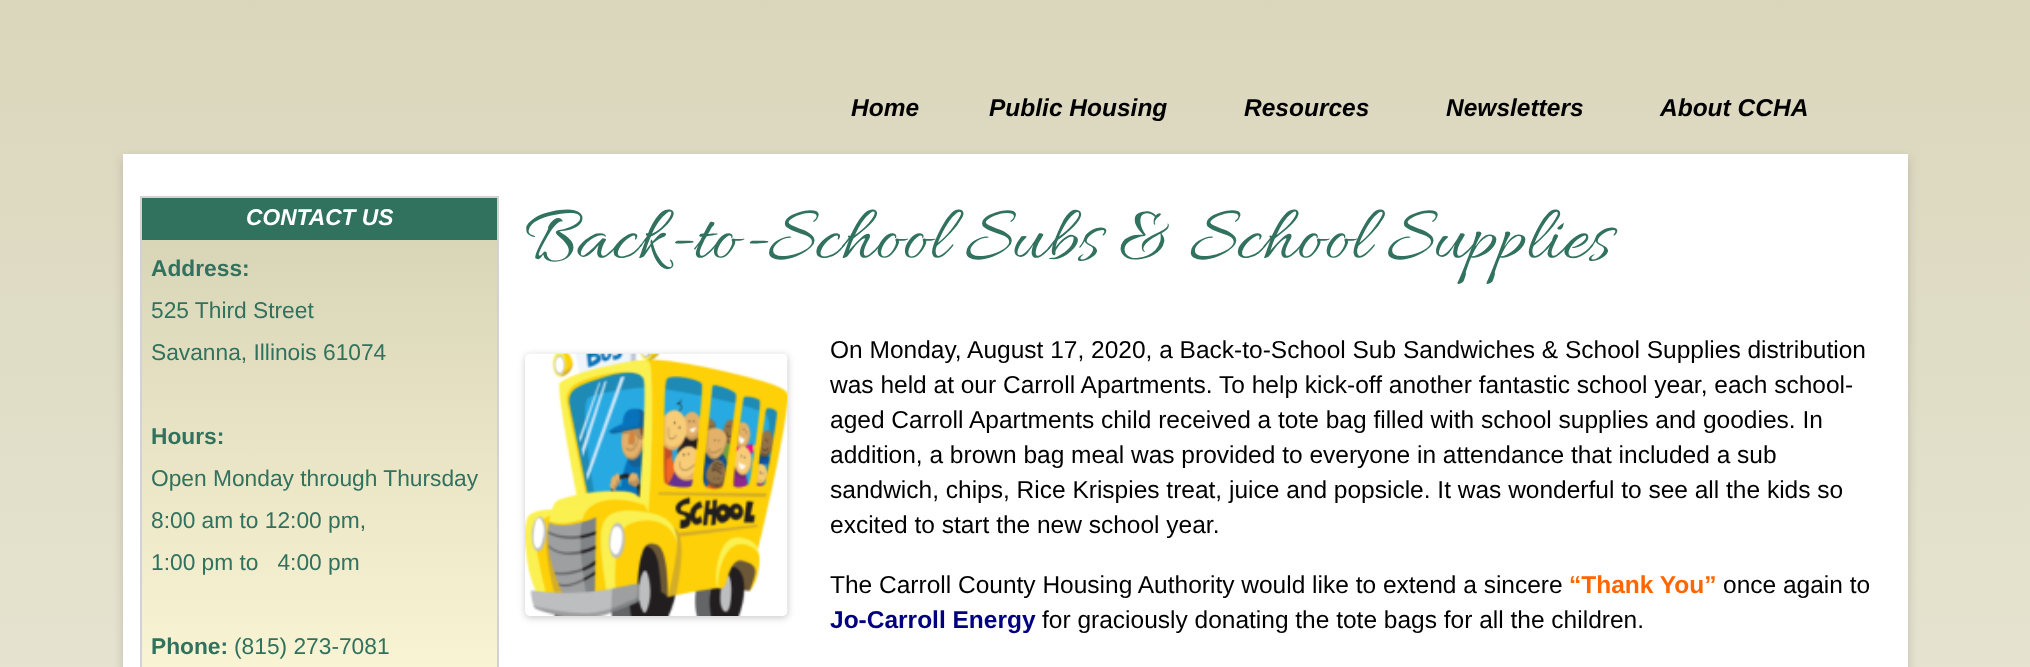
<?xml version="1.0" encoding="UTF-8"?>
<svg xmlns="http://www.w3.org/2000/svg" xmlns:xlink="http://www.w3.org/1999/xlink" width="2030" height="667">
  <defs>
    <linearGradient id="g1" gradientUnits="userSpaceOnUse" x1="1015" y1="-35" x2="1015" y2="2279"><stop offset="0" stop-color="#dad6bb" /><stop offset="1" stop-color="#ffffff" /></linearGradient>
    <linearGradient id="g2" gradientUnits="userSpaceOnUse" x1="319" y1="198" x2="319" y2="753"><stop offset="0" stop-color="#d6d2b5" /><stop offset="1" stop-color="#fffad8" /></linearGradient>
  </defs>
  <rect width="100%" height="100%" fill="#ffffff" />
  <rect width="2030" height="667" fill="url(#g1)" />
  <rect x="123" y="158" width="1785" height="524" fill="#646464" fill-opacity="0.3" filter="blur(5px)" />
  <rect x="123" y="154" width="1785" height="513" fill="#ffffff" />
  <rect x="142" y="240" width="355" height="427" fill="url(#g2)" />
  <rect x="141" y="197" width="357" height="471" fill="none" stroke="#d2d2d2" stroke-width="2" />
  <rect x="142" y="198" width="355" height="42" fill="#31725f" />
  <rect x="525" y="355" width="263" height="263" rx="5" fill="#000000" fill-opacity="0.2" filter="blur(3.5px)" />
  <image x="525" y="353" width="263" height="263" xlink:href="image1.png" />
  <text x="851" y="116" style="font-family: Liberation Sans; font-size: 24.5px; font-weight: bold; font-style: italic; fill: #000000">Home</text>
  <text x="989" y="116" style="font-family: Liberation Sans; font-size: 24.5px; font-weight: bold; font-style: italic; fill: #000000">Public Housing</text>
  <text x="1244" y="116" style="font-family: Liberation Sans; font-size: 24.5px; font-weight: bold; font-style: italic; fill: #000000">Resources</text>
  <text x="1446" y="116" style="font-family: Liberation Sans; font-size: 24.5px; font-weight: bold; font-style: italic; fill: #000000">Newsletters</text>
  <text x="1660" y="116" style="font-family: Liberation Sans; font-size: 24.5px; font-weight: bold; font-style: italic; fill: #000000">About CCHA</text>
  <text x="246" y="225" style="font-family: Liberation Sans; font-size: 22.75px; font-weight: bold; font-style: italic; fill: #ffffff">CONTACT US</text>
  <text x="151" y="276" style="font-family: Liberation Sans; font-size: 22.75px; font-weight: bold; fill: #31725f">Address:</text>
  <text x="151" y="318" style="font-family: Liberation Sans; font-size: 22.75px; fill: #31725f">525 Third Street</text>
  <text x="151" y="360" style="font-family: Liberation Sans; font-size: 22.75px; fill: #31725f">Savanna, Illinois 61074</text>
  <text x="151" y="444" style="font-family: Liberation Sans; font-size: 22.75px; font-weight: bold; fill: #31725f">Hours:</text>
  <text x="151" y="486" style="font-family: Liberation Sans; font-size: 22.75px; fill: #31725f">Open Monday through Thursday</text>
  <text x="151" y="528" style="font-family: Liberation Sans; font-size: 22.75px; fill: #31725f">8:00 am to 12:00 pm,</text>
  <text x="151" y="570" style="font-family: Liberation Sans; font-size: 22.75px; fill: #31725f" xml:space="preserve">1:00 pm to   4:00 pm</text>
  <text x="151" y="654" style="font-family: Liberation Sans; font-size: 22.75px; font-weight: bold; fill: #31725f">Phone:</text>
  <text x="234" y="654" style="font-family: Liberation Sans; font-size: 22.75px; fill: #31725f">(815) 273-7081</text>
  <text x="525" y="257" style="font-family: Allura; font-size: 78.75px; fill: #31725f">Back-to-School Subs &amp; School Supplies</text>
  <text x="830" y="358" style="font-family: Liberation Sans; font-size: 24.5px; fill: #000000">On Monday, August 17, 2020, a Back-to-School Sub Sandwiches &amp; School Supplies distribution</text>
  <text x="830" y="393" style="font-family: Liberation Sans; font-size: 24.5px; fill: #000000">was held at our Carroll Apartments. To help kick-off another fantastic school year, each school-</text>
  <text x="830" y="428" style="font-family: Liberation Sans; font-size: 24.5px; fill: #000000">aged Carroll Apartments child received a tote bag filled with school supplies and goodies. In</text>
  <text x="830" y="463" style="font-family: Liberation Sans; font-size: 24.5px; fill: #000000">addition, a brown bag meal was provided to everyone in attendance that included a sub</text>
  <text x="830" y="498" style="font-family: Liberation Sans; font-size: 24.5px; fill: #000000">sandwich, chips, Rice Krispies treat, juice and popsicle. It was wonderful to see all the kids so</text>
  <text x="830" y="533" style="font-family: Liberation Sans; font-size: 24.5px; fill: #000000">excited to start the new school year.</text>
  <text x="830" y="593" style="font-family: Liberation Sans; font-size: 24.5px; fill: #000000">The Carroll County Housing Authority would like to extend a sincere</text>
  <text x="1569" y="593" style="font-family: Liberation Sans; font-size: 24.5px; font-weight: bold; fill: #ff6600">“Thank You”</text>
  <text x="1723" y="593" style="font-family: Liberation Sans; font-size: 24.5px; fill: #000000">once again to</text>
  <text x="830" y="628" style="font-family: Liberation Sans; font-size: 24.5px; font-weight: bold; fill: #000080">Jo-Carroll Energy</text>
  <text x="1042" y="628" style="font-family: Liberation Sans; font-size: 24.5px; fill: #000000">for graciously donating the tote bags for all the children.</text>
</svg>
